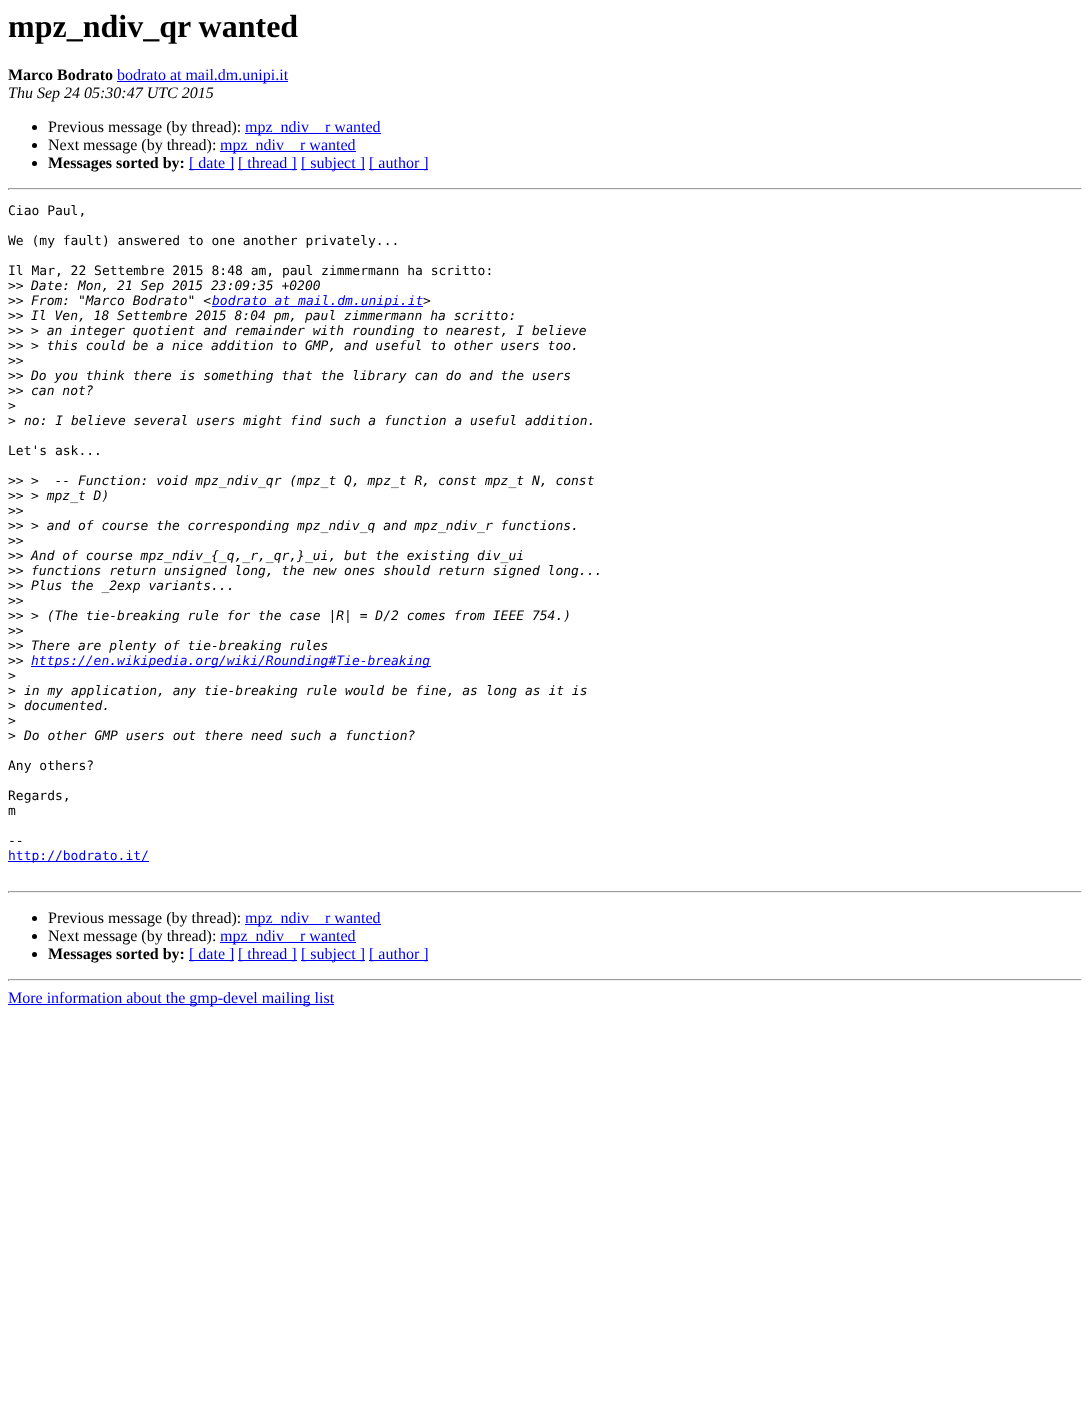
<?xml version="1.0" encoding="UTF-8"?>
<svg xmlns="http://www.w3.org/2000/svg" xmlns:xlink="http://www.w3.org/1999/xlink" width="1090" height="1423">
  <rect width="100%" height="100%" fill="#ffffff" />
  <rect x="117" y="81" width="171" height="1" fill="#0000ee" />
  <circle cx="34.5" cy="127.5" r="2.5" fill="#000000" />
  <rect x="245" y="133" width="136" height="1" fill="#0000ee" />
  <circle cx="34.5" cy="145.5" r="2.5" fill="#000000" />
  <rect x="220" y="151" width="136" height="1" fill="#0000ee" />
  <circle cx="34.5" cy="163.5" r="2.5" fill="#000000" />
  <rect x="189" y="169" width="45" height="1" fill="#0000ee" />
  <rect x="238" y="169" width="59" height="1" fill="#0000ee" />
  <rect x="301" y="169" width="64" height="1" fill="#0000ee" />
  <rect x="369" y="169" width="59" height="1" fill="#0000ee" />
  <rect x="8" y="188" width="1074" height="1" fill="#9f9f9f" />
  <rect x="1081" y="188" width="1" height="2" fill="#eeeeee" />
  <rect x="8" y="189" width="1074" height="1" fill="#eeeeee" />
  <rect x="8" y="188" width="1" height="2" fill="#9f9f9f" />
  <rect x="212" y="306" width="211" height="1" fill="#0000ee" />
  <rect x="31" y="666" width="400" height="1" fill="#0000ee" />
  <rect x="8" y="861" width="141" height="1" fill="#0000ee" />
  <rect x="8" y="891" width="1074" height="1" fill="#9f9f9f" />
  <rect x="1081" y="891" width="1" height="2" fill="#eeeeee" />
  <rect x="8" y="892" width="1074" height="1" fill="#eeeeee" />
  <rect x="8" y="891" width="1" height="2" fill="#9f9f9f" />
  <circle cx="34.5" cy="918.5" r="2.5" fill="#000000" />
  <rect x="245" y="924" width="136" height="1" fill="#0000ee" />
  <circle cx="34.5" cy="936.5" r="2.5" fill="#000000" />
  <rect x="220" y="942" width="136" height="1" fill="#0000ee" />
  <circle cx="34.5" cy="954.5" r="2.5" fill="#000000" />
  <rect x="189" y="960" width="45" height="1" fill="#0000ee" />
  <rect x="238" y="960" width="59" height="1" fill="#0000ee" />
  <rect x="301" y="960" width="64" height="1" fill="#0000ee" />
  <rect x="369" y="960" width="59" height="1" fill="#0000ee" />
  <rect x="8" y="979" width="1074" height="1" fill="#9f9f9f" />
  <rect x="1081" y="979" width="1" height="2" fill="#eeeeee" />
  <rect x="8" y="980" width="1074" height="1" fill="#eeeeee" />
  <rect x="8" y="979" width="1" height="2" fill="#9f9f9f" />
  <rect x="8" y="1004" width="326" height="1" fill="#0000ee" />
  <text x="8" y="37" style="font-family: Liberation Serif; font-size: 32px; font-weight: bold; fill: #000000">mpz_ndiv_qr wanted</text>
  <text x="8" y="80" style="font-family: Liberation Serif; font-size: 16px; font-weight: bold; fill: #000000">Marco Bodrato</text>
  <text x="117" y="80" style="font-family: Liberation Serif; font-size: 16px; fill: #0000ee">bodrato at mail.dm.unipi.it</text>
  <text x="8" y="98" style="font-family: Liberation Serif; font-size: 16px; font-style: italic; fill: #000000">Thu Sep 24 05:30:47 UTC 2015</text>
  <text x="48" y="132" style="font-family: Liberation Serif; font-size: 16px; fill: #000000">Previous message (by thread):</text>
  <text x="245" y="132" style="font-family: Liberation Serif; font-size: 16px; fill: #0000ee">mpz_ndiv</text>
  <text x="325" y="132" style="font-family: Liberation Serif; font-size: 16px; fill: #0000ee">r wanted</text>
  <text x="48" y="150" style="font-family: Liberation Serif; font-size: 16px; fill: #000000">Next message (by thread):</text>
  <text x="220" y="150" style="font-family: Liberation Serif; font-size: 16px; fill: #0000ee">mpz_ndiv</text>
  <text x="300" y="150" style="font-family: Liberation Serif; font-size: 16px; fill: #0000ee">r wanted</text>
  <text x="48" y="168" style="font-family: Liberation Serif; font-size: 16px; font-weight: bold; fill: #000000">Messages sorted by:</text>
  <text x="189" y="168" style="font-family: Liberation Serif; font-size: 16px; fill: #0000ee">[ date ]</text>
  <text x="238" y="168" style="font-family: Liberation Serif; font-size: 16px; fill: #0000ee">[ thread ]</text>
  <text x="301" y="168" style="font-family: Liberation Serif; font-size: 16px; fill: #0000ee">[ subject ]</text>
  <text x="369" y="168" style="font-family: Liberation Serif; font-size: 16px; fill: #0000ee">[ author ]</text>
  <text x="8" y="215" style="font-family: DejaVu Sans Mono; font-size: 13px; fill: #000000">Ciao Paul,</text>
  <text x="8" y="245" style="font-family: DejaVu Sans Mono; font-size: 13px; fill: #000000">We (my fault) answered to one another privately...</text>
  <text x="8" y="275" style="font-family: DejaVu Sans Mono; font-size: 13px; fill: #000000">Il Mar, 22 Settembre 2015 8:48 am, paul zimmermann ha scritto:</text>
  <text x="8" y="290" style="font-family: DejaVu Sans Mono; font-size: 13px; fill: #000000">&gt;&gt;</text>
  <text x="31" y="290" style="font-family: DejaVu Sans Mono; font-size: 13px; font-style: italic; fill: #000000">Date: Mon, 21 Sep 2015 23:09:35 +0200</text>
  <text x="8" y="305" style="font-family: DejaVu Sans Mono; font-size: 13px; fill: #000000">&gt;&gt;</text>
  <text x="31" y="305" style="font-family: DejaVu Sans Mono; font-size: 13px; font-style: italic; fill: #000000">From: "Marco Bodrato" &lt;</text>
  <text x="212" y="305" style="font-family: DejaVu Sans Mono; font-size: 13px; font-style: italic; fill: #0000ee">bodrato at mail.dm.unipi.it</text>
  <text x="423" y="305" style="font-family: DejaVu Sans Mono; font-size: 13px; font-style: italic; fill: #000000">&gt;</text>
  <text x="8" y="320" style="font-family: DejaVu Sans Mono; font-size: 13px; fill: #000000">&gt;&gt;</text>
  <text x="31" y="320" style="font-family: DejaVu Sans Mono; font-size: 13px; font-style: italic; fill: #000000">Il Ven, 18 Settembre 2015 8:04 pm, paul zimmermann ha scritto:</text>
  <text x="8" y="335" style="font-family: DejaVu Sans Mono; font-size: 13px; fill: #000000">&gt;&gt;</text>
  <text x="31" y="335" style="font-family: DejaVu Sans Mono; font-size: 13px; font-style: italic; fill: #000000">&gt; an integer quotient and remainder with rounding to nearest, I believe</text>
  <text x="8" y="350" style="font-family: DejaVu Sans Mono; font-size: 13px; fill: #000000">&gt;&gt;</text>
  <text x="31" y="350" style="font-family: DejaVu Sans Mono; font-size: 13px; font-style: italic; fill: #000000">&gt; this could be a nice addition to GMP, and useful to other users too.</text>
  <text x="8" y="365" style="font-family: DejaVu Sans Mono; font-size: 13px; fill: #000000">&gt;&gt;</text>
  <text x="8" y="380" style="font-family: DejaVu Sans Mono; font-size: 13px; fill: #000000">&gt;&gt;</text>
  <text x="31" y="380" style="font-family: DejaVu Sans Mono; font-size: 13px; font-style: italic; fill: #000000">Do you think there is something that the library can do and the users</text>
  <text x="8" y="395" style="font-family: DejaVu Sans Mono; font-size: 13px; fill: #000000">&gt;&gt;</text>
  <text x="31" y="395" style="font-family: DejaVu Sans Mono; font-size: 13px; font-style: italic; fill: #000000">can not?</text>
  <text x="8" y="410" style="font-family: DejaVu Sans Mono; font-size: 13px; fill: #000000">&gt;</text>
  <text x="8" y="425" style="font-family: DejaVu Sans Mono; font-size: 13px; fill: #000000">&gt;</text>
  <text x="24" y="425" style="font-family: DejaVu Sans Mono; font-size: 13px; font-style: italic; fill: #000000">no: I believe several users might find such a function a useful addition.</text>
  <text x="8" y="455" style="font-family: DejaVu Sans Mono; font-size: 13px; fill: #000000">Let's ask...</text>
  <text x="8" y="485" style="font-family: DejaVu Sans Mono; font-size: 13px; fill: #000000">&gt;&gt;</text>
  <text x="31" y="485" style="font-family: DejaVu Sans Mono; font-size: 13px; font-style: italic; fill: #000000" xml:space="preserve">&gt;  -- Function: void mpz_ndiv_qr (mpz_t Q, mpz_t R, const mpz_t N, const</text>
  <text x="8" y="500" style="font-family: DejaVu Sans Mono; font-size: 13px; fill: #000000">&gt;&gt;</text>
  <text x="31" y="500" style="font-family: DejaVu Sans Mono; font-size: 13px; font-style: italic; fill: #000000">&gt; mpz_t D)</text>
  <text x="8" y="515" style="font-family: DejaVu Sans Mono; font-size: 13px; fill: #000000">&gt;&gt;</text>
  <text x="8" y="530" style="font-family: DejaVu Sans Mono; font-size: 13px; fill: #000000">&gt;&gt;</text>
  <text x="31" y="530" style="font-family: DejaVu Sans Mono; font-size: 13px; font-style: italic; fill: #000000">&gt; and of course the corresponding mpz_ndiv_q and mpz_ndiv_r functions.</text>
  <text x="8" y="545" style="font-family: DejaVu Sans Mono; font-size: 13px; fill: #000000">&gt;&gt;</text>
  <text x="8" y="560" style="font-family: DejaVu Sans Mono; font-size: 13px; fill: #000000">&gt;&gt;</text>
  <text x="31" y="560" style="font-family: DejaVu Sans Mono; font-size: 13px; font-style: italic; fill: #000000">And of course mpz_ndiv_{_q,_r,_qr,}_ui, but the existing div_ui</text>
  <text x="8" y="575" style="font-family: DejaVu Sans Mono; font-size: 13px; fill: #000000">&gt;&gt;</text>
  <text x="31" y="575" style="font-family: DejaVu Sans Mono; font-size: 13px; font-style: italic; fill: #000000">functions return unsigned long, the new ones should return signed long...</text>
  <text x="8" y="590" style="font-family: DejaVu Sans Mono; font-size: 13px; fill: #000000">&gt;&gt;</text>
  <text x="31" y="590" style="font-family: DejaVu Sans Mono; font-size: 13px; font-style: italic; fill: #000000">Plus the _2exp variants...</text>
  <text x="8" y="605" style="font-family: DejaVu Sans Mono; font-size: 13px; fill: #000000">&gt;&gt;</text>
  <text x="8" y="620" style="font-family: DejaVu Sans Mono; font-size: 13px; fill: #000000">&gt;&gt;</text>
  <text x="31" y="620" style="font-family: DejaVu Sans Mono; font-size: 13px; font-style: italic; fill: #000000">&gt; (The tie-breaking rule for the case |R| = D/2 comes from IEEE 754.)</text>
  <text x="8" y="635" style="font-family: DejaVu Sans Mono; font-size: 13px; fill: #000000">&gt;&gt;</text>
  <text x="8" y="650" style="font-family: DejaVu Sans Mono; font-size: 13px; fill: #000000">&gt;&gt;</text>
  <text x="31" y="650" style="font-family: DejaVu Sans Mono; font-size: 13px; font-style: italic; fill: #000000">There are plenty of tie-breaking rules</text>
  <text x="8" y="665" style="font-family: DejaVu Sans Mono; font-size: 13px; fill: #000000">&gt;&gt;</text>
  <text x="31" y="665" style="font-family: DejaVu Sans Mono; font-size: 13px; font-style: italic; fill: #0000ee">https://en.wikipedia.org/wiki/Rounding#Tie-breaking</text>
  <text x="8" y="680" style="font-family: DejaVu Sans Mono; font-size: 13px; fill: #000000">&gt;</text>
  <text x="8" y="695" style="font-family: DejaVu Sans Mono; font-size: 13px; fill: #000000">&gt;</text>
  <text x="24" y="695" style="font-family: DejaVu Sans Mono; font-size: 13px; font-style: italic; fill: #000000">in my application, any tie-breaking rule would be fine, as long as it is</text>
  <text x="8" y="710" style="font-family: DejaVu Sans Mono; font-size: 13px; fill: #000000">&gt;</text>
  <text x="24" y="710" style="font-family: DejaVu Sans Mono; font-size: 13px; font-style: italic; fill: #000000">documented.</text>
  <text x="8" y="725" style="font-family: DejaVu Sans Mono; font-size: 13px; fill: #000000">&gt;</text>
  <text x="8" y="740" style="font-family: DejaVu Sans Mono; font-size: 13px; fill: #000000">&gt;</text>
  <text x="24" y="740" style="font-family: DejaVu Sans Mono; font-size: 13px; font-style: italic; fill: #000000">Do other GMP users out there need such a function?</text>
  <text x="8" y="770" style="font-family: DejaVu Sans Mono; font-size: 13px; fill: #000000">Any others?</text>
  <text x="8" y="800" style="font-family: DejaVu Sans Mono; font-size: 13px; fill: #000000">Regards,</text>
  <text x="8" y="815" style="font-family: DejaVu Sans Mono; font-size: 13px; fill: #000000">m</text>
  <text x="8" y="845" style="font-family: DejaVu Sans Mono; font-size: 13px; fill: #000000">--</text>
  <text x="8" y="860" style="font-family: DejaVu Sans Mono; font-size: 13px; fill: #0000ee">http://bodrato.it/</text>
  <text x="48" y="923" style="font-family: Liberation Serif; font-size: 16px; fill: #000000">Previous message (by thread):</text>
  <text x="245" y="923" style="font-family: Liberation Serif; font-size: 16px; fill: #0000ee">mpz_ndiv</text>
  <text x="325" y="923" style="font-family: Liberation Serif; font-size: 16px; fill: #0000ee">r wanted</text>
  <text x="48" y="941" style="font-family: Liberation Serif; font-size: 16px; fill: #000000">Next message (by thread):</text>
  <text x="220" y="941" style="font-family: Liberation Serif; font-size: 16px; fill: #0000ee">mpz_ndiv</text>
  <text x="300" y="941" style="font-family: Liberation Serif; font-size: 16px; fill: #0000ee">r wanted</text>
  <text x="48" y="959" style="font-family: Liberation Serif; font-size: 16px; font-weight: bold; fill: #000000">Messages sorted by:</text>
  <text x="189" y="959" style="font-family: Liberation Serif; font-size: 16px; fill: #0000ee">[ date ]</text>
  <text x="238" y="959" style="font-family: Liberation Serif; font-size: 16px; fill: #0000ee">[ thread ]</text>
  <text x="301" y="959" style="font-family: Liberation Serif; font-size: 16px; fill: #0000ee">[ subject ]</text>
  <text x="369" y="959" style="font-family: Liberation Serif; font-size: 16px; fill: #0000ee">[ author ]</text>
  <text x="8" y="1003" style="font-family: Liberation Serif; font-size: 16px; fill: #0000ee">More information about the gmp-devel mailing list</text>
</svg>
